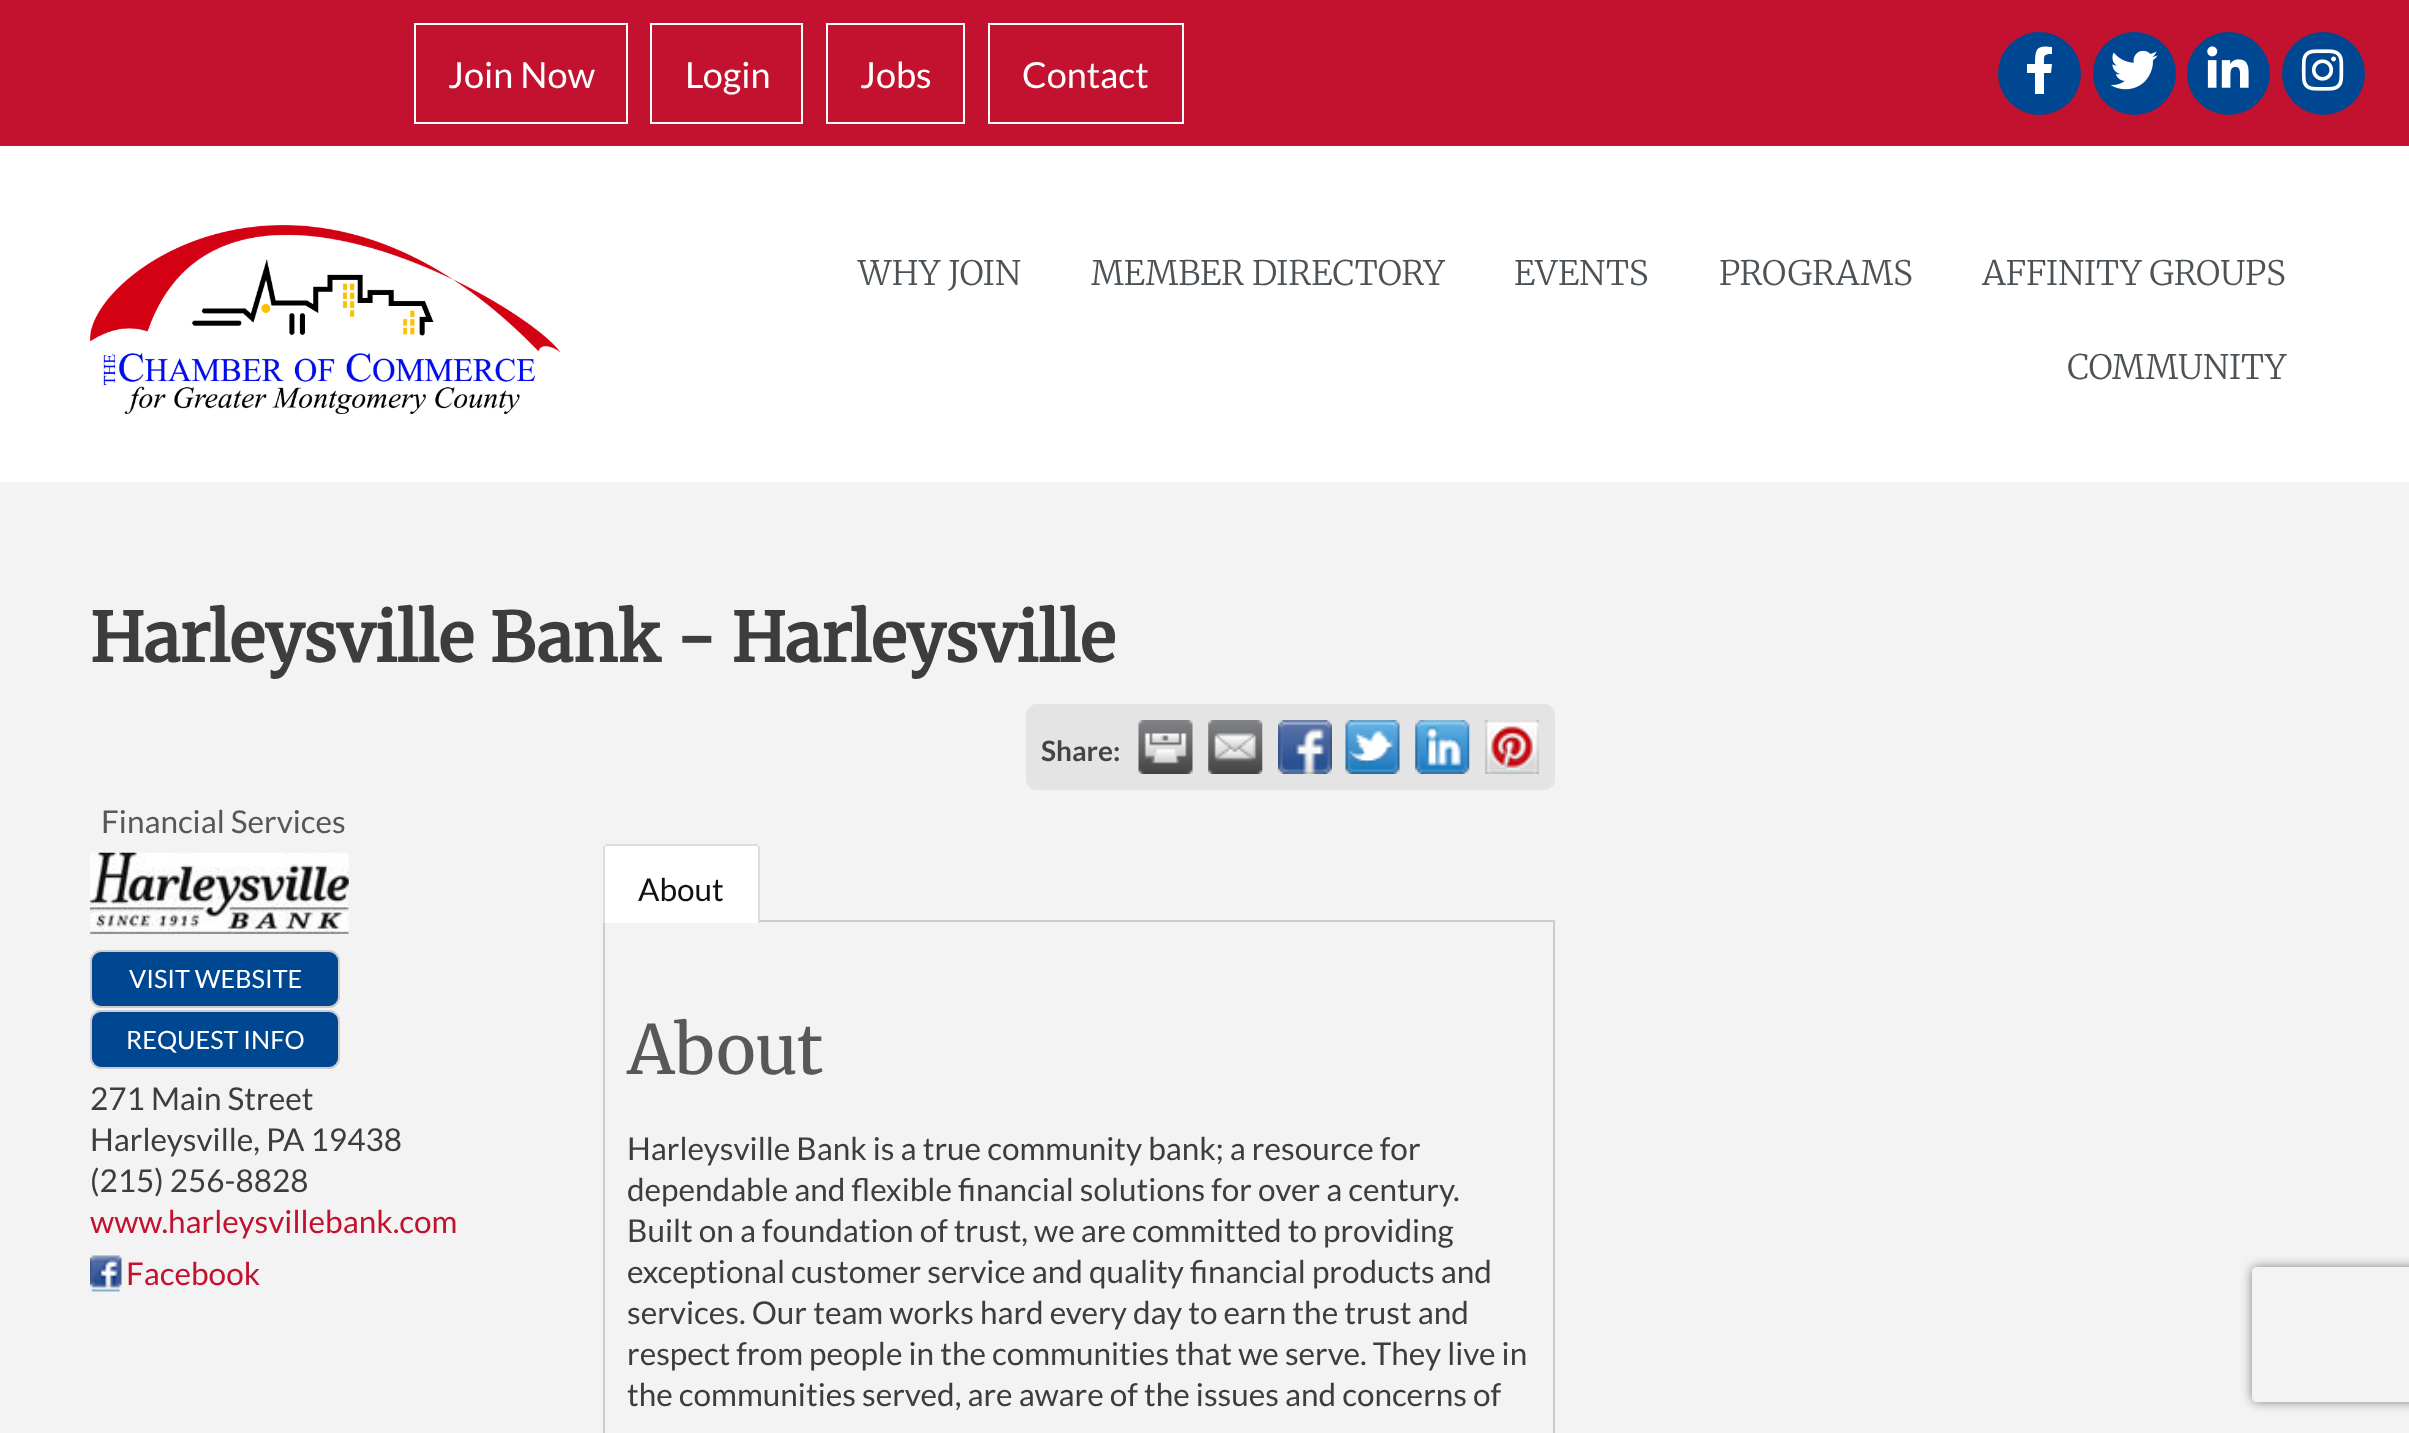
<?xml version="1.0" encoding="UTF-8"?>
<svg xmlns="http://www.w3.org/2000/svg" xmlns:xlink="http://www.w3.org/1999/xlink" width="2409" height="1433">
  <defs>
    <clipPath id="clip1"><path d="M 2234 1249 h 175 v 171 h -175 z m 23 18 h 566 c 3 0 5 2 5 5 v 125 c 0 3 -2 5 -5 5 h -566 c -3 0 -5 -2 -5 -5 v -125 c 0 -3 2 -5 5 -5 z" clip-rule="evenodd" /></clipPath>
  </defs>
  <rect width="100%" height="100%" fill="#ffffff" />
  <rect width="2409" height="146" fill="#c3122f" />
  <rect x="415" y="24" width="212" height="99" fill="none" stroke="#ffffff" stroke-width="2" />
  <rect x="651" y="24" width="151" height="99" fill="none" stroke="#ffffff" stroke-width="2" />
  <rect x="827" y="24" width="137" height="99" fill="none" stroke="#ffffff" stroke-width="2" />
  <rect x="989" y="24" width="194" height="99" fill="none" stroke="#ffffff" stroke-width="2" />
  <circle cx="2039.5" cy="73.5" r="41.5" fill="#004792" />
  <path d="M 2051 73 h -7 v 21 h -9 v -21 h -8 v -9 h 8 c 0 -16 2 -19 17 -17 v 7 c -9 0 -8 2 -8 10 h 8 z" fill="#ffffff" />
  <circle cx="2134.5" cy="73.5" r="41.5" fill="#004792" />
  <image x="2110" y="50" width="48" height="40" xlink:href="image1.png" />
  <circle cx="2228.5" cy="73.5" r="41.5" fill="#004792" />
  <image x="2207" y="46" width="42" height="42" xlink:href="image2.png" />
  <circle cx="2323.5" cy="73.5" r="41.5" fill="#004792" />
  <image x="2301" y="49" width="43" height="42" xlink:href="image3.png" />
  <image x="90" y="225" width="471" height="189" xlink:href="image4.png" />
  <rect y="482" width="2409" height="951" fill="#f3f3f3" />
  <rect x="1026" y="704" width="529" height="86" rx="11" fill="#e4e4e4" />
  <image x="1138" y="720" width="55" height="54" xlink:href="image5.png" />
  <image x="1208" y="720" width="55" height="54" xlink:href="image6.png" />
  <image x="1278" y="720" width="54" height="54" xlink:href="image7.png" />
  <image x="1345" y="720" width="55" height="54" xlink:href="image8.png" />
  <image x="1415" y="720" width="55" height="54" xlink:href="image9.png" />
  <image x="1485" y="720" width="54" height="54" xlink:href="image10.png" />
  <image x="90" y="852" width="259" height="82" xlink:href="image11.png" />
  <rect x="91" y="951" width="248" height="56" rx="10" fill="#004792" stroke="#cccccc" stroke-width="2" />
  <rect x="91" y="1011" width="248" height="57" rx="10" fill="#004792" stroke="#cccccc" stroke-width="2" />
  <image x="90" y="1255" width="32" height="37" xlink:href="image12.png" />
  <rect x="604" y="921" width="950" height="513" fill="none" stroke="#cccccc" stroke-width="2" />
  <path d="M 607 846 h 149 c 1 0 2 1 2 2 v 75 h -153 v -75 c 0 -1 1 -2 2 -2 z" fill="#ffffff" />
  <rect x="605" y="844" width="153" height="2" fill="#dddddd" />
  <rect x="758" y="846" width="2" height="77" fill="#dddddd" />
  <rect x="603" y="846" width="2" height="77" fill="#dddddd" />
  <g clip-path="url(#clip1)">
    <rect x="2252" y="1267" width="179" height="135" rx="5" fill="#808080" filter="blur(5.5px)" />
  </g>
  <text x="448" y="88" style="font-family: Lato; font-size: 36px; fill: #ffffff">Join Now</text>
  <text x="685" y="88" style="font-family: Lato; font-size: 36px; fill: #ffffff">Login</text>
  <text x="860" y="88" style="font-family: Lato; font-size: 36px; fill: #ffffff">Jobs</text>
  <text x="1022" y="88" style="font-family: Lato; font-size: 36px; fill: #ffffff">Contact</text>
  <text x="858" y="285" style="font-family: Merriweather; font-size: 33.75px; font-weight: 300; fill: #4c5256">WHY JOIN</text>
  <text x="1091" y="285" style="font-family: Merriweather; font-size: 33.75px; font-weight: 300; fill: #4c5256">MEMBER DIRECTORY</text>
  <text x="1514" y="285" style="font-family: Merriweather; font-size: 33.75px; font-weight: 300; fill: #4c5256">EVENTS</text>
  <text x="1719" y="285" style="font-family: Merriweather; font-size: 33.75px; font-weight: 300; fill: #4c5256">PROGRAMS</text>
  <text x="1982" y="285" style="font-family: Merriweather; font-size: 33.75px; font-weight: 300; fill: #4c5256">AFFINITY GROUPS</text>
  <text x="2067" y="379" style="font-family: Merriweather; font-size: 33.75px; font-weight: 300; fill: #4c5256">COMMUNITY</text>
  <text x="90" y="662" style="font-family: Merriweather; font-size: 67.5px; font-weight: bold; fill: #3d3d3d">Harleysville Bank - Harleysville</text>
  <text x="1041" y="761" style="font-family: Lato; font-size: 28px; font-weight: bold; fill: #444444">Share:</text>
  <text x="101" y="833" style="font-family: Lato; font-size: 31.5px; fill: #585858">Financial Services</text>
  <text x="129" y="988" style="font-family: Lato; font-size: 25.25px; fill: #ffffff">VISIT WEBSITE</text>
  <text x="126" y="1049" style="font-family: Lato; font-size: 25.25px; fill: #ffffff">REQUEST INFO</text>
  <text x="90" y="1110" style="font-family: Lato; font-size: 31.5px; fill: #3d3d3d">271 Main Street</text>
  <text x="90" y="1151" style="font-family: Lato; font-size: 31.5px; fill: #3d3d3d">Harleysville, PA 19438</text>
  <text x="90" y="1192" style="font-family: Lato; font-size: 31.5px; fill: #3d3d3d">(215) 256-8828</text>
  <text x="90" y="1233" style="font-family: Lato; font-size: 31.5px; fill: #c3122f">www.harleysvillebank.com</text>
  <text x="126" y="1285" style="font-family: Lato; font-size: 31.5px; fill: #c3122f">Facebook</text>
  <text x="638" y="901" style="font-family: Lato; font-size: 31.5px; fill: #111111">About</text>
  <text x="627" y="1074" style="font-family: Merriweather; font-size: 67.5px; fill: #585858">About</text>
  <text x="627" y="1160" style="font-family: Lato; font-size: 31.5px; fill: #3d3d3d">Harleysville Bank is a true community bank; a resource for</text>
  <text x="627" y="1201" style="font-family: Lato; font-size: 31.5px; fill: #3d3d3d">dependable and flexible financial solutions for over a century.</text>
  <text x="627" y="1242" style="font-family: Lato; font-size: 31.5px; fill: #3d3d3d">Built on a foundation of trust, we are committed to providing</text>
  <text x="627" y="1283" style="font-family: Lato; font-size: 31.5px; fill: #3d3d3d">exceptional customer service and quality financial products and</text>
  <text x="627" y="1324" style="font-family: Lato; font-size: 31.5px; fill: #3d3d3d">services. Our team works hard every day to earn the trust and</text>
  <text x="627" y="1365" style="font-family: Lato; font-size: 31.5px; fill: #3d3d3d">respect from people in the communities that we serve. They live in</text>
  <text x="627" y="1406" style="font-family: Lato; font-size: 31.5px; fill: #3d3d3d">the communities served, are aware of the issues and concerns of</text>
</svg>
